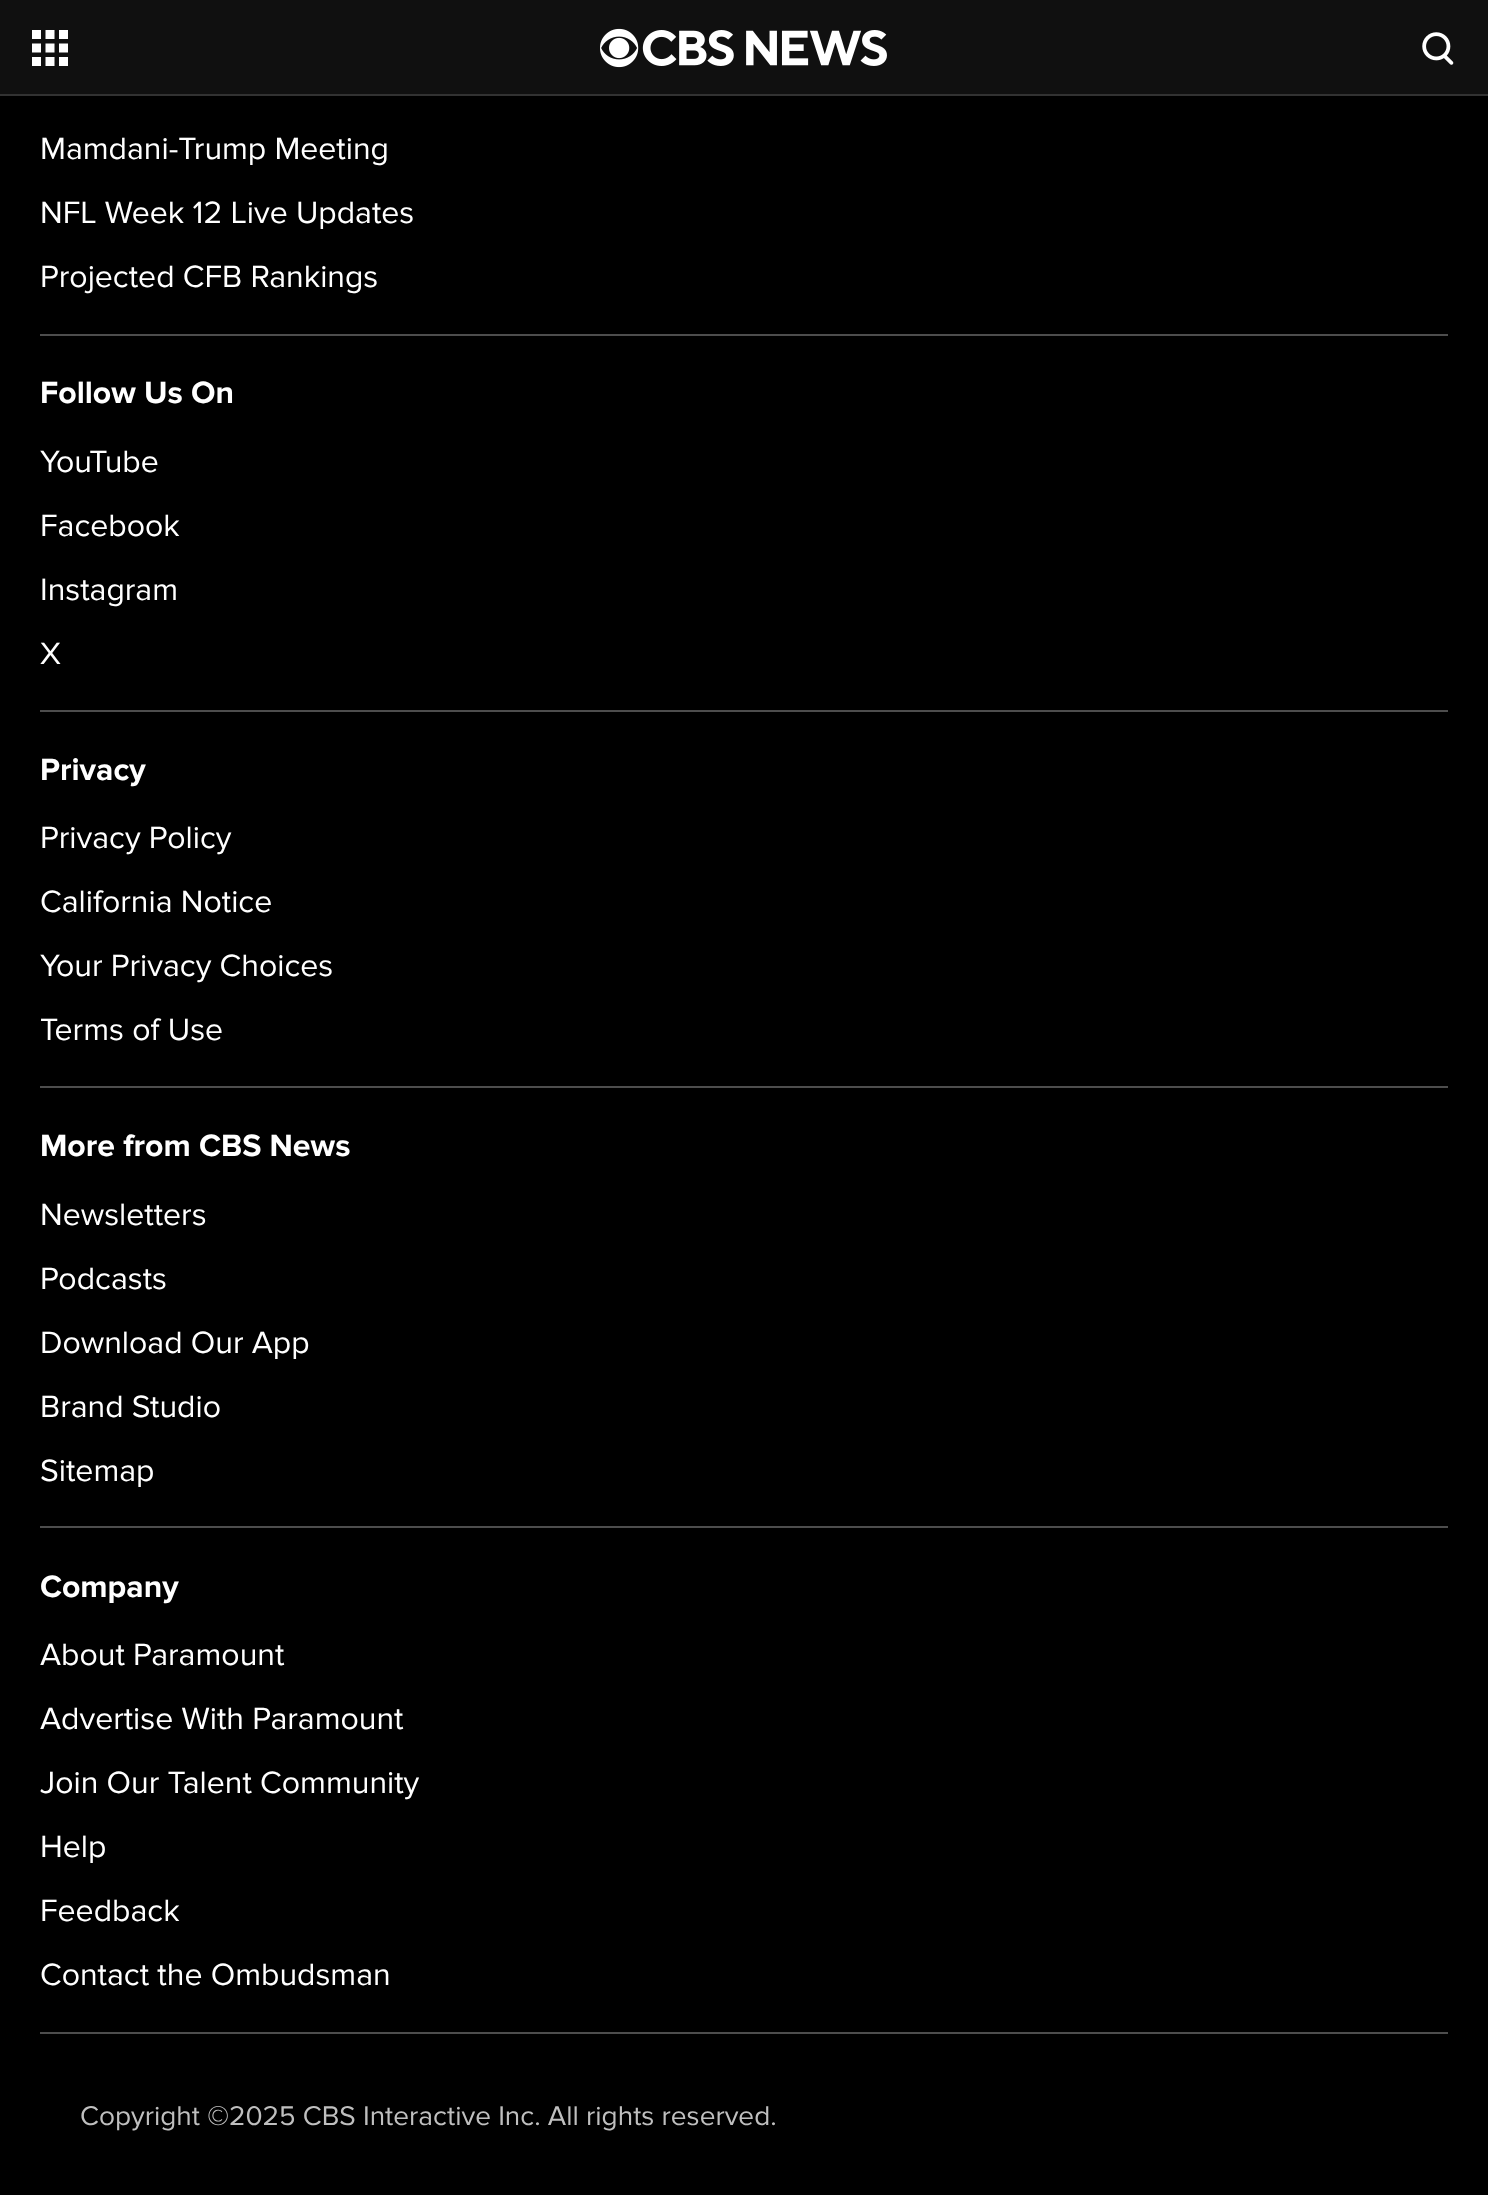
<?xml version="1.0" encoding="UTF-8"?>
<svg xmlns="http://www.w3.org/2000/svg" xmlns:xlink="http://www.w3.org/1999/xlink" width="1488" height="2195">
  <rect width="100%" height="100%" fill="#000000" />
  <rect width="1488" height="94" fill="#101010" />
  <rect y="94" width="1488" height="2" fill="#323232" />
  <image x="32" y="30" width="36" height="36" xlink:href="image1.png" />
  <image x="600" y="28" width="287" height="40" xlink:href="image2.png" />
  <image x="1422" y="32" width="32" height="33" xlink:href="image3.png" />
  <rect x="40" y="334" width="1408" height="2" fill="#4d4d4d" />
  <rect x="40" y="710" width="1408" height="2" fill="#4d4d4d" />
  <rect x="40" y="1086" width="1408" height="2" fill="#4d4d4d" />
  <rect x="40" y="1526" width="1408" height="2" fill="#4d4d4d" />
  <rect x="40" y="2032" width="1408" height="2" fill="#4d4d4d" />
  <text x="40" y="159" style="font-family: Proxima Nova; font-size: 32px; fill: #ffffff">Mamdani-Trump Meeting</text>
  <text x="40" y="223" style="font-family: Proxima Nova; font-size: 32px; fill: #ffffff">NFL Week 12 Live Updates</text>
  <text x="40" y="287" style="font-family: Proxima Nova; font-size: 32px; fill: #ffffff">Projected CFB Rankings</text>
  <text x="40" y="403" style="font-family: Proxima Nova; font-size: 32px; font-weight: bold; fill: #ffffff">Follow Us On</text>
  <text x="40" y="472" style="font-family: Proxima Nova; font-size: 32px; fill: #ffffff">YouTube</text>
  <text x="40" y="536" style="font-family: Proxima Nova; font-size: 32px; fill: #ffffff">Facebook</text>
  <text x="40" y="600" style="font-family: Proxima Nova; font-size: 32px; fill: #ffffff">Instagram</text>
  <text x="40" y="664" style="font-family: Proxima Nova; font-size: 32px; fill: #ffffff">X</text>
  <text x="40" y="780" style="font-family: Proxima Nova; font-size: 32px; font-weight: bold; fill: #ffffff">Privacy</text>
  <text x="40" y="848" style="font-family: Proxima Nova; font-size: 32px; fill: #ffffff">Privacy Policy</text>
  <text x="40" y="912" style="font-family: Proxima Nova; font-size: 32px; fill: #ffffff">California Notice</text>
  <text x="40" y="976" style="font-family: Proxima Nova; font-size: 32px; fill: #ffffff">Your Privacy Choices</text>
  <text x="40" y="1040" style="font-family: Proxima Nova; font-size: 32px; fill: #ffffff">Terms of Use</text>
  <text x="40" y="1156" style="font-family: Proxima Nova; font-size: 32px; font-weight: bold; fill: #ffffff">More from CBS News</text>
  <text x="40" y="1225" style="font-family: Proxima Nova; font-size: 32px; fill: #ffffff">Newsletters</text>
  <text x="40" y="1289" style="font-family: Proxima Nova; font-size: 32px; fill: #ffffff">Podcasts</text>
  <text x="40" y="1353" style="font-family: Proxima Nova; font-size: 32px; fill: #ffffff">Download Our App</text>
  <text x="40" y="1417" style="font-family: Proxima Nova; font-size: 32px; fill: #ffffff">Brand Studio</text>
  <text x="40" y="1481" style="font-family: Proxima Nova; font-size: 32px; fill: #ffffff">Sitemap</text>
  <text x="40" y="1597" style="font-family: Proxima Nova; font-size: 32px; font-weight: bold; fill: #ffffff">Company</text>
  <text x="40" y="1665" style="font-family: Proxima Nova; font-size: 32px; fill: #ffffff">About Paramount</text>
  <text x="40" y="1729" style="font-family: Proxima Nova; font-size: 32px; fill: #ffffff">Advertise With Paramount</text>
  <text x="40" y="1793" style="font-family: Proxima Nova; font-size: 32px; fill: #ffffff">Join Our Talent Community</text>
  <text x="40" y="1857" style="font-family: Proxima Nova; font-size: 32px; fill: #ffffff">Help</text>
  <text x="40" y="1921" style="font-family: Proxima Nova; font-size: 32px; fill: #ffffff">Feedback</text>
  <text x="40" y="1985" style="font-family: Proxima Nova; font-size: 32px; fill: #ffffff">Contact the Ombudsman</text>
  <text x="80" y="2125" style="font-family: Proxima Nova; font-size: 28px; fill: #bfbfbf">Copyright ©2025 CBS Interactive Inc. All rights reserved.</text>
</svg>
